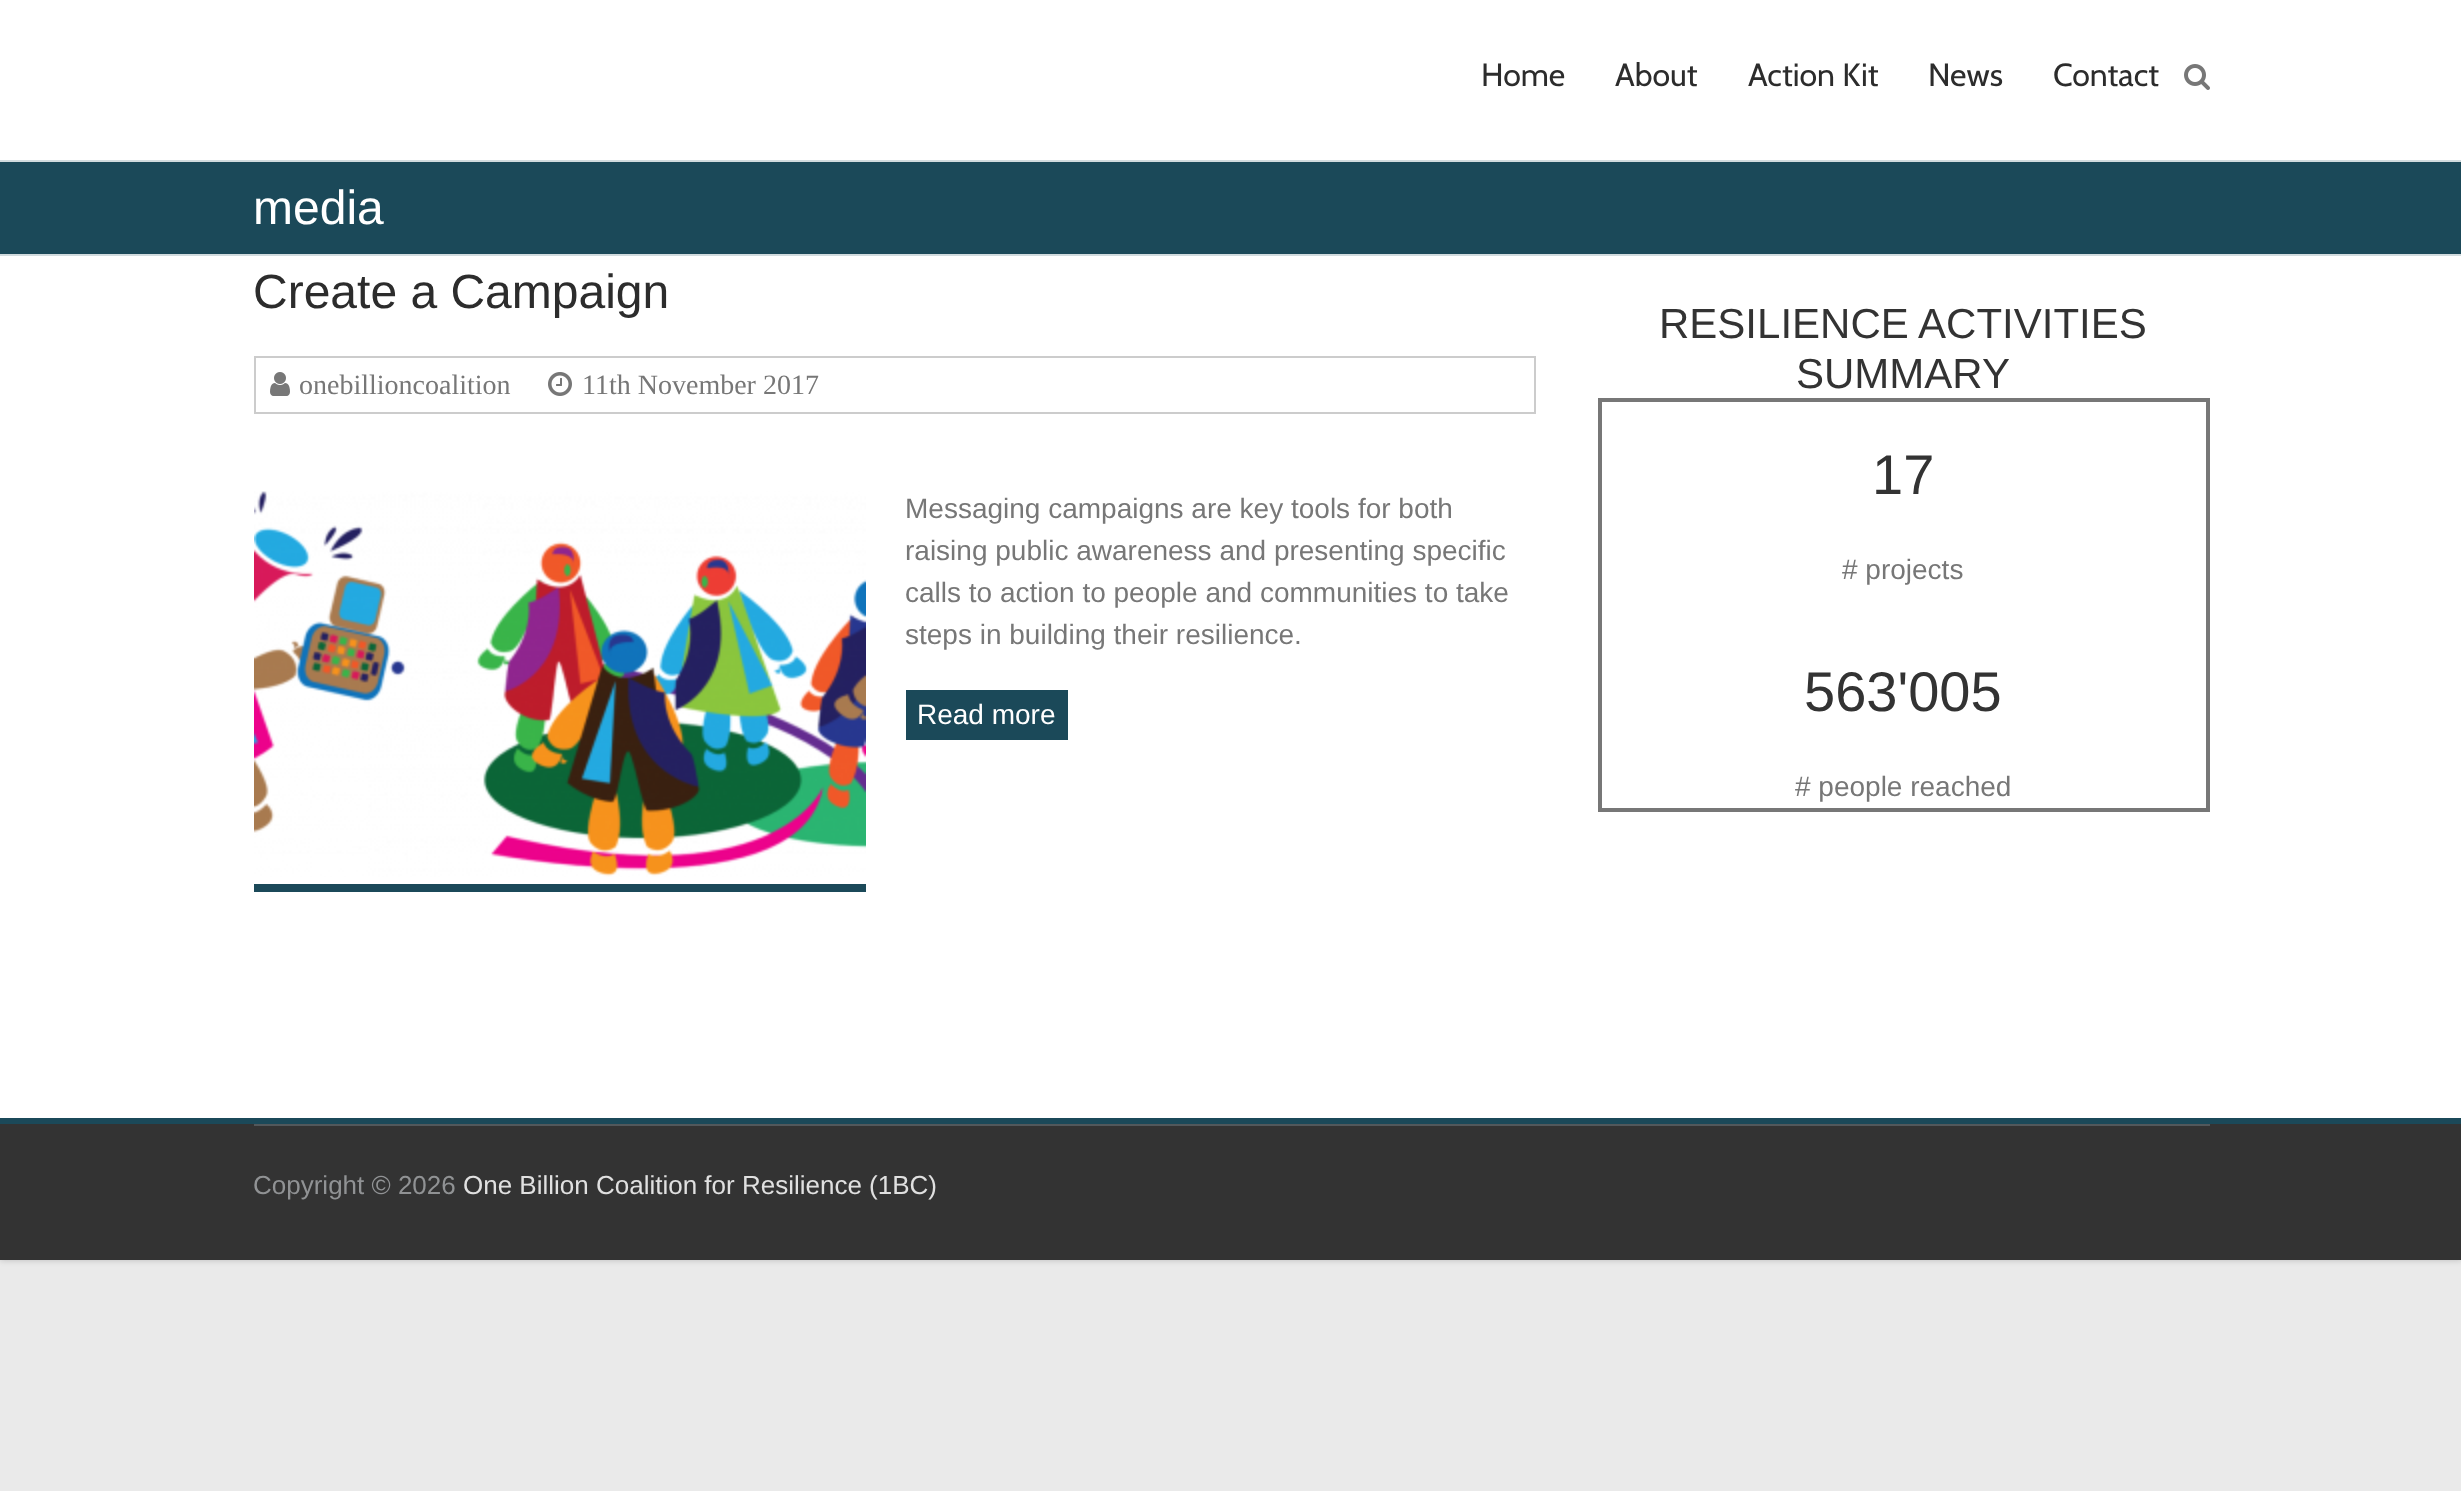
<?xml version="1.0" encoding="UTF-8"?>
<svg xmlns="http://www.w3.org/2000/svg" xmlns:xlink="http://www.w3.org/1999/xlink" width="2461" height="1491">
  <rect width="100%" height="100%" fill="#eaeaea" />
  <rect width="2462" height="1260" fill="#000000" fill-opacity="0.2" filter="blur(3px)" />
  <rect width="2461" height="1118" fill="#ffffff" />
  <image x="2184" y="64" width="26" height="26" xlink:href="image1.png" />
  <rect y="162" width="2461" height="92" fill="#1b4959" />
  <rect y="160" width="2461" height="2" fill="#d1dbde" />
  <rect y="254" width="2461" height="2" fill="#d1dbde" />
  <rect x="255" y="357" width="1280" height="56" fill="none" stroke="#cccccc" stroke-width="2" />
  <image x="270" y="372" width="20" height="24" xlink:href="image2.png" />
  <image x="548" y="372" width="24" height="24" xlink:href="image3.png" />
  <rect x="254" y="884" width="612" height="8" fill="#1b4959" />
  <image x="254" y="491" width="612" height="386" xlink:href="image4.png" />
  <rect x="906" y="690" width="162" height="50" fill="#1b4959" />
  <rect x="1598" y="398" width="612" height="4" fill="#777777" />
  <rect x="2206" y="398" width="4" height="414" fill="#777777" />
  <rect x="1598" y="808" width="612" height="4" fill="#777777" />
  <rect x="1598" y="398" width="4" height="414" fill="#777777" />
  <rect y="1124" width="2461" height="136" fill="#333333" />
  <rect y="1118" width="2461" height="6" fill="#1b4959" />
  <rect x="254" y="1124" width="1956" height="2" fill="#52585b" />
  <text x="1481" y="86" style="font-family: Cabin; font-size: 32px; fill: #2c2c2c">Home</text>
  <text x="1615" y="86" style="font-family: Cabin; font-size: 32px; fill: #2c2c2c">About</text>
  <text x="1748" y="86" style="font-family: Cabin; font-size: 32px; fill: #2c2c2c">Action Kit</text>
  <text x="1928" y="86" style="font-family: Cabin; font-size: 32px; fill: #2c2c2c">News</text>
  <text x="2053" y="86" style="font-family: Cabin; font-size: 32px; fill: #2c2c2c">Contact</text>
  <text x="253" y="224" style="font-family: Liberation Sans; font-size: 48px; fill: #ffffff">media</text>
  <text x="253" y="308" style="font-family: Liberation Sans; font-size: 48px; fill: #2c2c2c">Create a Campaign</text>
  <text x="299" y="394" style="font-family: Liberation Serif; font-size: 28px; fill: #777777">onebillioncoalition</text>
  <text x="582" y="394" style="font-family: Liberation Serif; font-size: 28px; fill: #777777">11th November 2017</text>
  <text x="905" y="518" style="font-family: Liberation Sans; font-size: 28px; fill: #777777">Messaging campaigns are key tools for both</text>
  <text x="905" y="560" style="font-family: Liberation Sans; font-size: 28px; fill: #777777">raising public awareness and presenting specific</text>
  <text x="905" y="602" style="font-family: Liberation Sans; font-size: 28px; fill: #777777">calls to action to people and communities to take</text>
  <text x="905" y="644" style="font-family: Liberation Sans; font-size: 28px; fill: #777777">steps in building their resilience.</text>
  <text x="917" y="724" style="font-family: Liberation Sans; font-size: 28px; fill: #ffffff">Read more</text>
  <text x="1659" y="338" style="font-family: Liberation Sans; font-size: 42px; fill: #333333">RESILIENCE ACTIVITIES</text>
  <text x="1796" y="388" style="font-family: Liberation Sans; font-size: 42px; fill: #333333">SUMMARY</text>
  <text x="1872" y="494" style="font-family: Liberation Sans; font-size: 56px; fill: #333333">17</text>
  <text x="1842" y="579" style="font-family: Liberation Sans; font-size: 28px; fill: #777777"># projects</text>
  <text x="1804" y="711" style="font-family: Liberation Sans; font-size: 56px; fill: #333333">563'005</text>
  <text x="1795" y="796" style="font-family: Liberation Sans; font-size: 28px; fill: #777777"># people reached</text>
  <text x="253" y="1194" style="font-family: Liberation Sans; font-size: 26px; fill: #909294">Copyright © 2026</text>
  <text x="463" y="1194" style="font-family: Liberation Sans; font-size: 26px; fill: #e0e0e0">One Billion Coalition for Resilience (1BC)</text>
</svg>
